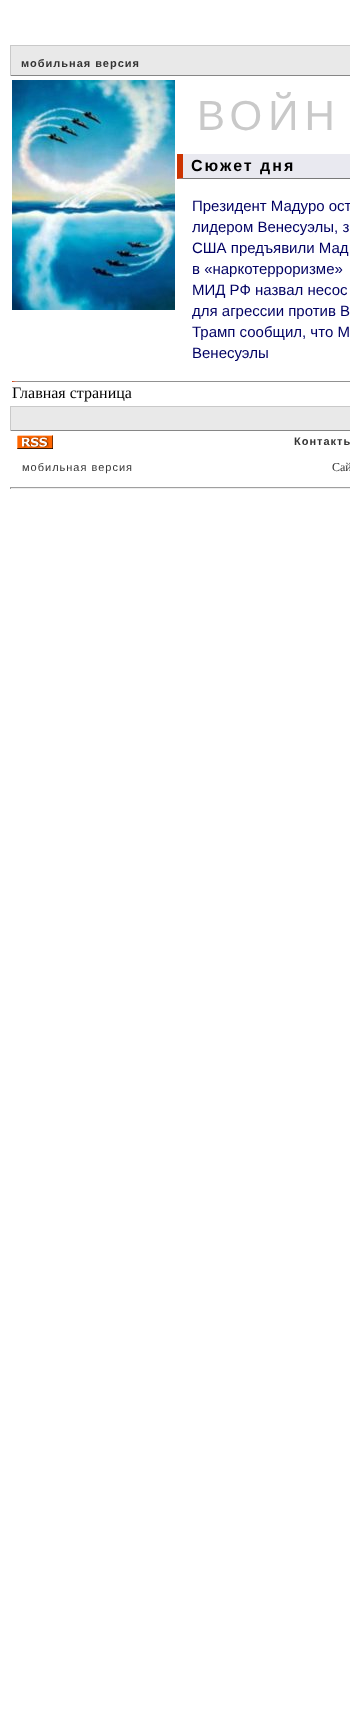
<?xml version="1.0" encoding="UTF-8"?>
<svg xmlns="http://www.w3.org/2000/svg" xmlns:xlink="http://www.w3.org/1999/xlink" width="350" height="1711">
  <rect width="100%" height="100%" fill="#ffffff" />
  <rect x="11" y="46" width="339" height="29" fill="#e9e9e9" />
  <rect x="10" y="45" width="340" height="1" fill="#c9c9c9" />
  <rect x="10" y="75" width="340" height="1" fill="#868686" />
  <rect x="10" y="45" width="1" height="31" fill="#c9c9c9" />
  <image x="12" y="80" width="163" height="230" xlink:href="image1.png" />
  <rect x="177" y="154" width="173" height="25" fill="#e9e9f0" />
  <path d="M 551 179 h -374 l 6 -1 h 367 z" fill="#797979" />
  <path d="M 177 179 v -25 h 6 v 24 z" fill="#cc3300" />
  <path d="M 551 382 h -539 l 6 -1 h 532 z" fill="#919191" />
  <path d="M 12 382 v -1 h 6 z" fill="#cc3300" />
  <rect x="11" y="407" width="339" height="23" fill="#e9e9e9" />
  <rect x="10" y="406" width="340" height="1" fill="#c9c9c9" />
  <rect x="10" y="430" width="340" height="1" fill="#868686" />
  <rect x="10" y="406" width="1" height="25" fill="#c9c9c9" />
  <image x="17" y="435" width="36" height="14" xlink:href="image2.png" />
  <rect x="10" y="487" width="340" height="1" fill="#9f9f9f" />
  <rect x="10" y="488" width="340" height="1" fill="#eeeeee" />
  <rect x="10" y="487" width="1" height="2" fill="#9f9f9f" />
  <text x="21" y="67" style="font-family: Liberation Sans; font-size: 11px; font-weight: bold; letter-spacing: 1px; fill: #333333">мобильная версия</text>
  <text x="197" y="130" style="font-family: Liberation Sans; font-size: 42px; letter-spacing: 6px; fill: #c9c9c9">ВОЙН</text>
  <text x="191" y="171" style="font-family: Liberation Sans; font-size: 16px; font-weight: bold; letter-spacing: 2px; fill: #000000">Сюжет дня</text>
  <text x="192" y="211" style="font-family: Liberation Sans; font-size: 15px; fill: #000063">Президент Мадуро ост</text>
  <text x="192" y="232" style="font-family: Liberation Sans; font-size: 15px; fill: #000063">лидером Венесуэлы, з</text>
  <text x="192" y="253" style="font-family: Liberation Sans; font-size: 15px; fill: #000063">США предъявили Мад</text>
  <text x="192" y="274" style="font-family: Liberation Sans; font-size: 15px; fill: #000063">в «наркотерроризме»</text>
  <text x="192" y="295" style="font-family: Liberation Sans; font-size: 15px; fill: #000063">МИД РФ назвал несос</text>
  <text x="192" y="316" style="font-family: Liberation Sans; font-size: 15px; fill: #000063">для агрессии против В</text>
  <text x="192" y="337" style="font-family: Liberation Sans; font-size: 15px; fill: #000063">Трамп сообщил, что М</text>
  <text x="192" y="358" style="font-family: Liberation Sans; font-size: 15px; fill: #000063">Венесуэлы</text>
  <text x="12" y="398" style="font-family: Liberation Serif; font-size: 16px; fill: #000000">Главная страница</text>
  <text x="294" y="445" style="font-family: Liberation Sans; font-size: 11px; font-weight: bold; letter-spacing: 1px; fill: #333333">Контакты</text>
  <text x="22" y="471" style="font-family: Liberation Sans; font-size: 11px; letter-spacing: 1px; fill: #333333">мобильная версия</text>
  <text x="332" y="471" style="font-family: Liberation Serif; font-size: 12px; fill: #333333">Сай</text>
</svg>
